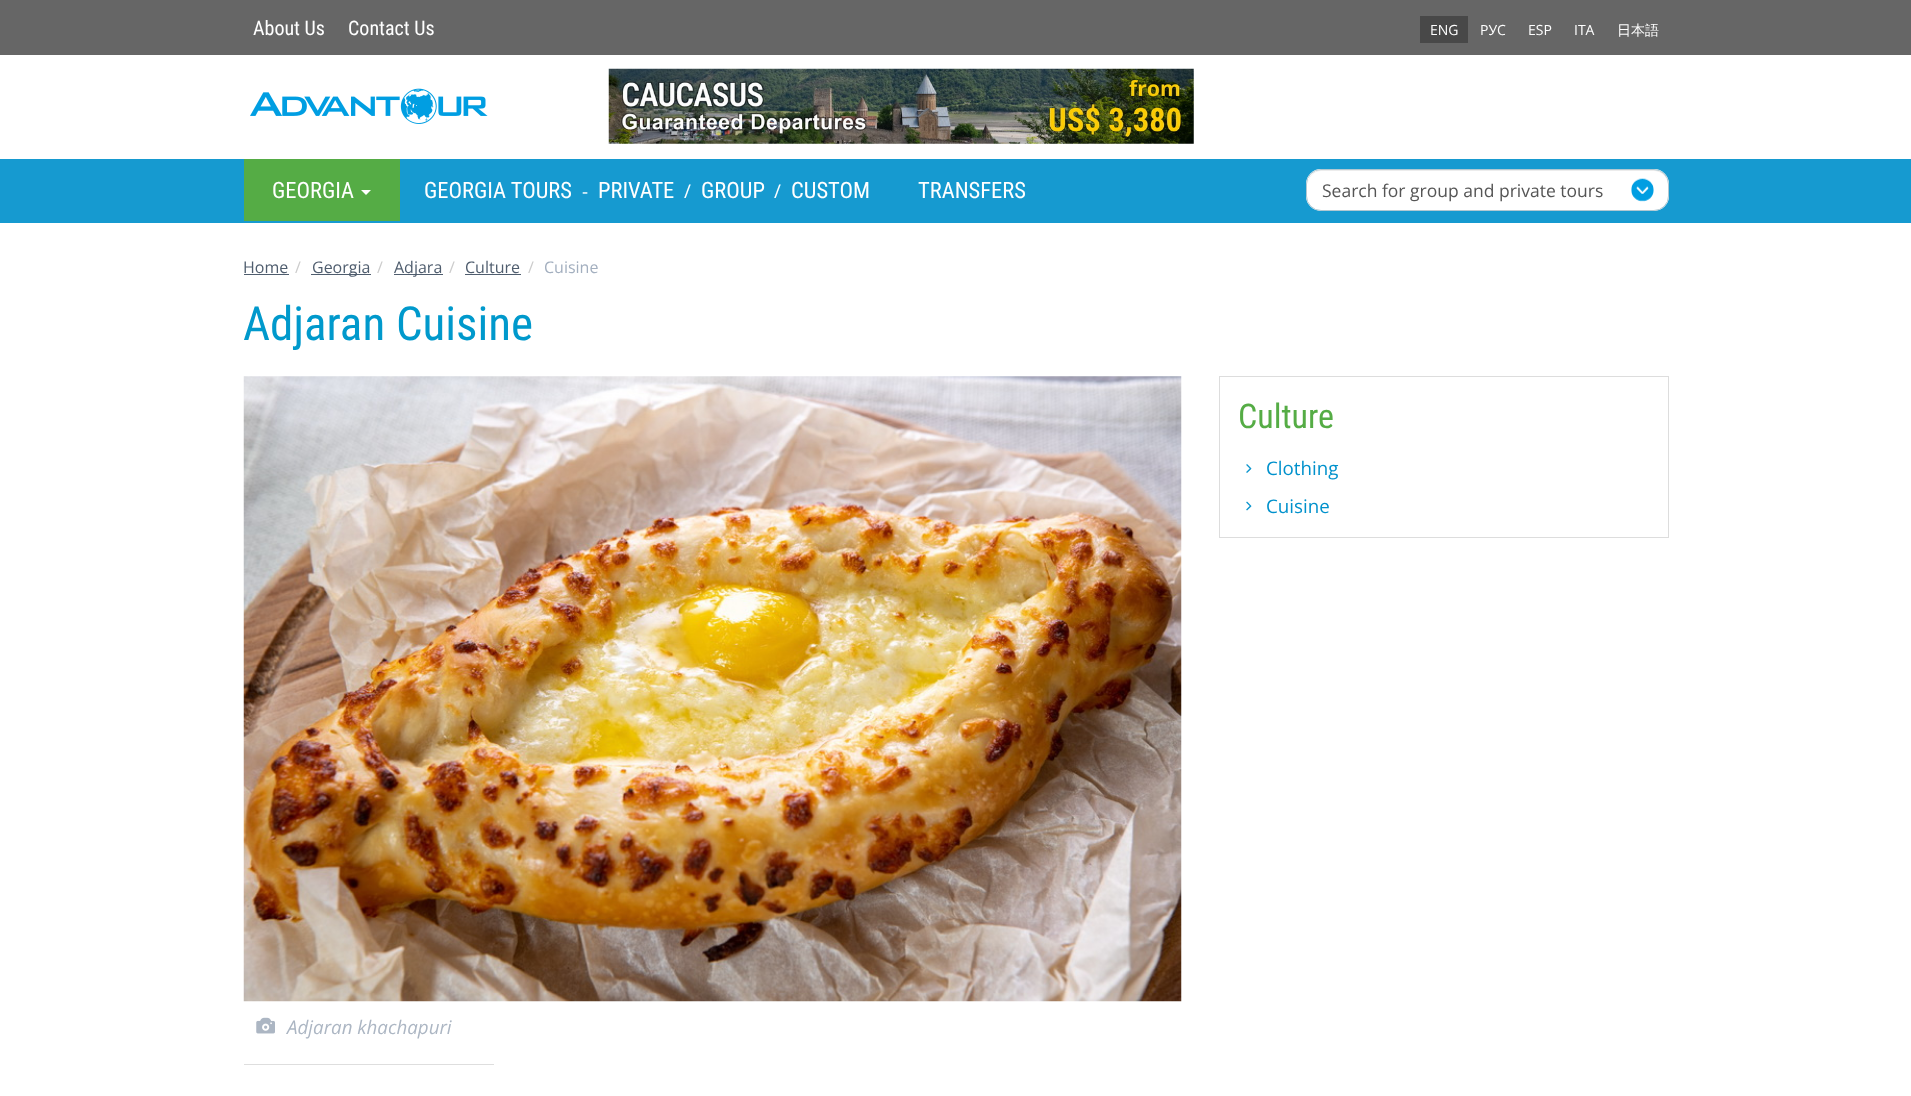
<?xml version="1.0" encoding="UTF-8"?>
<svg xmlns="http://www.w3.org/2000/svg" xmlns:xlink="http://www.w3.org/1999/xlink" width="1911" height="1096">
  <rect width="100%" height="100%" fill="#ffffff" />
  <rect width="1911" height="55" fill="#666666" />
  <rect x="1420" y="16" width="48" height="27" fill="#484848" />
  <image x="250" y="88" width="238" height="36" xlink:href="image1.png" />
  <image x="608" y="68" width="586" height="76" xlink:href="image2.png" />
  <rect y="159" width="1911" height="64" fill="#169ad0" />
  <rect x="244" y="159" width="156" height="62" fill="#55ac45" />
  <path d="M 361 190 h 10 l -5 5 z" fill="#ffffff" />
  <rect x="1306" y="169" width="363" height="42" rx="15" fill="#ffffff" />
  <path d="M 1321 171 h 333 c 7 0 14 6 14 14 v -1 c 0 -8 -6 -14 -14 -14 h -332 c -8 0 -14 6 -14 14 v 1 c 0 -8 6 -14 13 -14 z" fill="#ececec" />
  <rect x="1306.5" y="169.5" width="362" height="41" rx="14.5" fill="none" stroke="#b2c8d1" />
  <image x="1631" y="178" width="23" height="24" xlink:href="image3.png" />
  <rect x="244" y="274" width="45" height="1" fill="#4f5d6e" />
  <rect x="311" y="274" width="60" height="1" fill="#4f5d6e" />
  <rect x="394" y="274" width="49" height="1" fill="#4f5d6e" />
  <rect x="465" y="274" width="56" height="1" fill="#4f5d6e" />
  <rect x="1219.5" y="376.5" width="449" height="161" fill="none" stroke="#dddddd" />
  <image x="1246" y="464" width="6" height="9" xlink:href="image4.png" />
  <image x="1246" y="501" width="6" height="10" xlink:href="image5.png" />
  <image x="243" y="376" width="939" height="626" xlink:href="image6.png" />
  <image x="256" y="1017" width="19" height="17" xlink:href="image7.png" />
  <rect x="244" y="1064" width="250" height="1" fill="#dedede" />
  <text x="253" y="35" style="font-family: Roboto Condensed; font-size: 20px; fill: #ffffff">About Us</text>
  <text x="348" y="35" style="font-family: Roboto Condensed; font-size: 20px; fill: #ffffff">Contact Us</text>
  <text x="1430" y="35" style="font-family: Open Sans; font-size: 14px; fill: #ffffff">ENG</text>
  <text x="1480" y="35" style="font-family: Open Sans; font-size: 14px; fill: #ffffff">РУС</text>
  <text x="1528" y="35" style="font-family: Open Sans; font-size: 14px; fill: #ffffff">ESP</text>
  <text x="1574" y="35" style="font-family: Open Sans; font-size: 14px; fill: #ffffff">ITA</text>
  <text x="1617" y="35" style="font-family: WenQuanYi Zen Hei; font-size: 14px; font-weight: 500; fill: #ffffff">日本語</text>
  <text x="272" y="198" style="font-family: Roboto Condensed; font-size: 22.5px; fill: #ffffff">GEORGIA</text>
  <text x="424" y="198" style="font-family: Roboto Condensed; font-size: 22.5px; fill: #ffffff">GEORGIA TOURS</text>
  <text x="582" y="198" style="font-family: Open Sans; font-size: 18.75px; fill: #ffffff">-</text>
  <text x="598" y="198" style="font-family: Roboto Condensed; font-size: 22.5px; fill: #ffffff">PRIVATE</text>
  <text x="684" y="198" style="font-family: Open Sans; font-size: 18.75px; fill: #ffffff">/</text>
  <text x="701" y="198" style="font-family: Roboto Condensed; font-size: 22.5px; fill: #ffffff">GROUP</text>
  <text x="774" y="198" style="font-family: Open Sans; font-size: 18.75px; fill: #ffffff">/</text>
  <text x="791" y="198" style="font-family: Roboto Condensed; font-size: 22.5px; fill: #ffffff">CUSTOM</text>
  <text x="918" y="198" style="font-family: Roboto Condensed; font-size: 22.5px; fill: #ffffff">TRANSFERS</text>
  <text x="1322" y="197" style="font-family: Open Sans; font-size: 17.5px; fill: #555555">Search for group and private tours</text>
  <text x="243" y="273" style="font-family: Open Sans; font-size: 16px; fill: #4f5d6e">Home</text>
  <text x="295" y="273" style="font-family: Open Sans; font-size: 16px; fill: #cccccc">/</text>
  <text x="312" y="273" style="font-family: Open Sans; font-size: 16px; fill: #4f5d6e">Georgia</text>
  <text x="377" y="273" style="font-family: Open Sans; font-size: 16px; fill: #cccccc">/</text>
  <text x="394" y="273" style="font-family: Open Sans; font-size: 16px; fill: #4f5d6e">Adjara</text>
  <text x="449" y="273" style="font-family: Open Sans; font-size: 16px; fill: #cccccc">/</text>
  <text x="465" y="273" style="font-family: Open Sans; font-size: 16px; fill: #4f5d6e">Culture</text>
  <text x="528" y="273" style="font-family: Open Sans; font-size: 16px; fill: #cccccc">/</text>
  <text x="544" y="273" style="font-family: Open Sans; font-size: 16px; fill: #a3afbf">Cuisine</text>
  <text x="243" y="340" style="font-family: Roboto Condensed; font-size: 47px; fill: #0099cc">Adjaran Cuisine</text>
  <text x="1238" y="428" style="font-family: Roboto Condensed; font-size: 34px; fill: #55ac45">Culture</text>
  <text x="1266" y="475" style="font-family: Open Sans; font-size: 18.75px; fill: #0091cc">Clothing</text>
  <text x="1266" y="513" style="font-family: Open Sans; font-size: 18.75px; fill: #0091cc">Cuisine</text>
  <text x="287" y="1034" style="font-family: Open Sans; font-size: 18.75px; font-style: italic; fill: #acb6c3">Adjaran khachapuri</text>
</svg>
